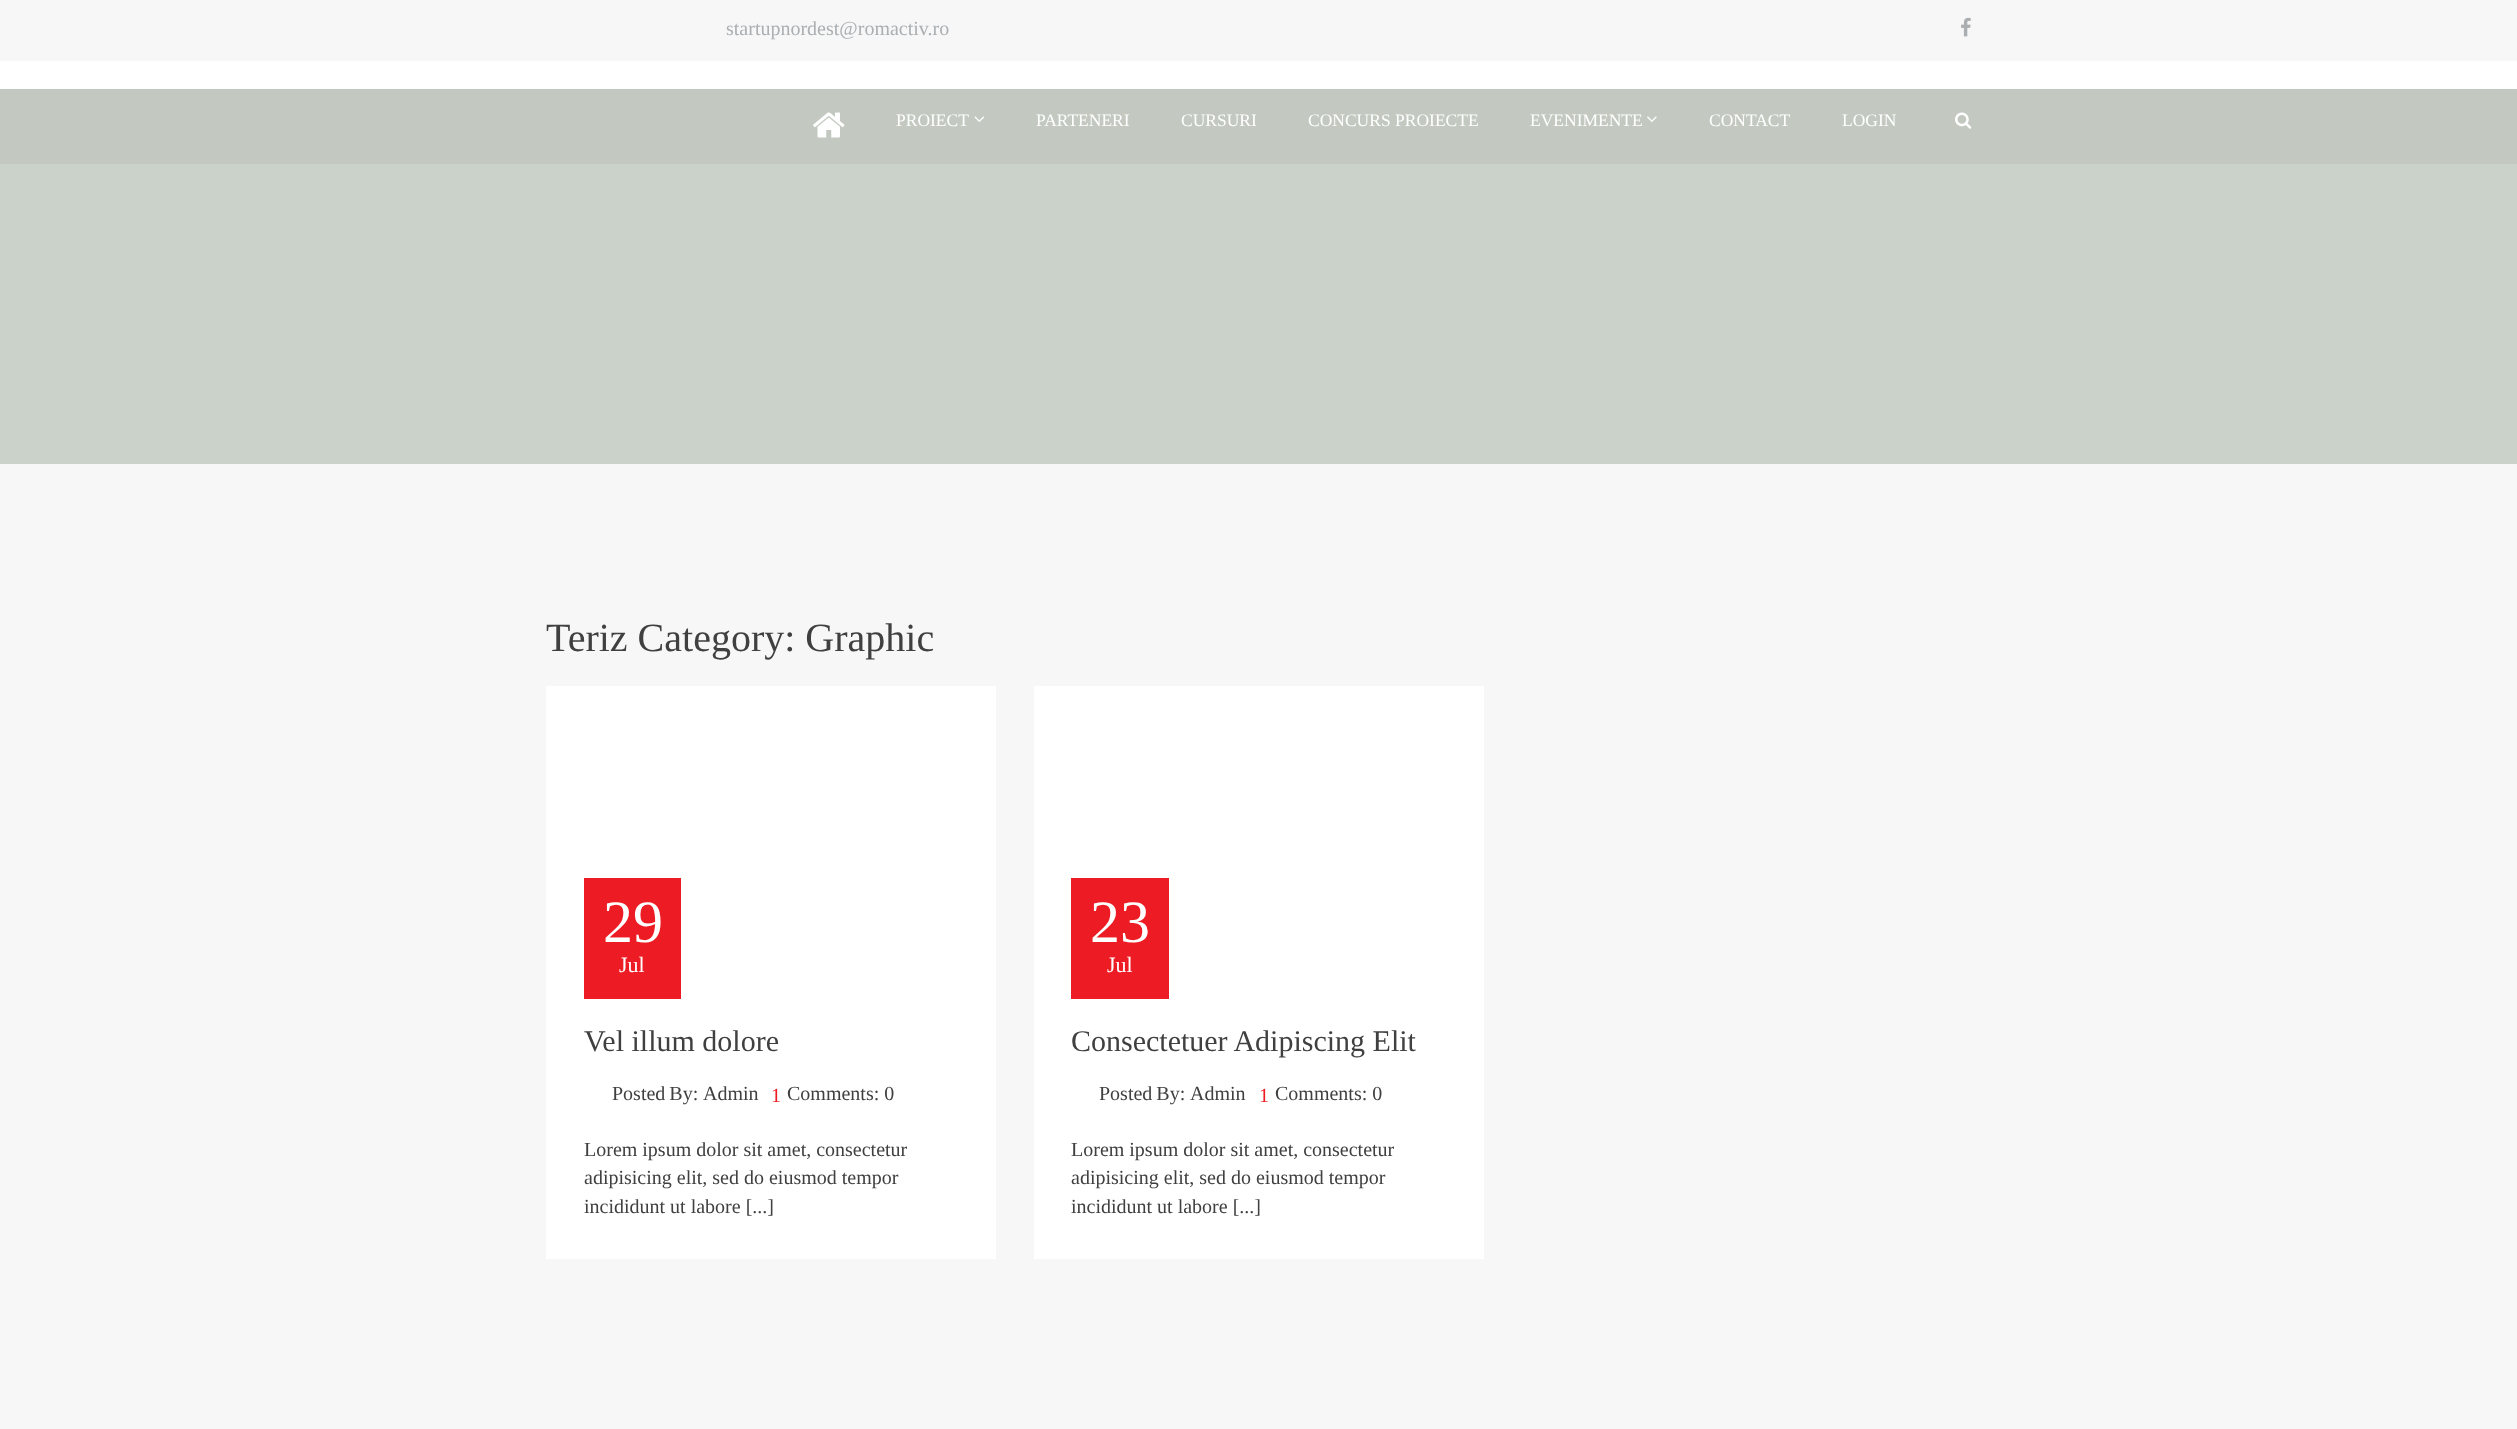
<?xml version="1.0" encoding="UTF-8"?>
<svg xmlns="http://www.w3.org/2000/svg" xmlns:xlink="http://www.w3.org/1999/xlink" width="2517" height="1429">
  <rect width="100%" height="100%" fill="#f7f7f7" />
  <image x="1961" y="17" width="10" height="20" xlink:href="image1.png" />
  <rect y="61" width="2517" height="28" fill="#ffffff" />
  <rect y="89" width="2517" height="75" fill="#c3c9c0" />
  <image x="813" y="112" width="32" height="26" xlink:href="image2.png" />
  <image x="974" y="116" width="11" height="6" xlink:href="image3.png" />
  <image x="1647" y="116" width="10" height="6" xlink:href="image4.png" />
  <image x="1955" y="112" width="17" height="17" xlink:href="image5.png" />
  <rect y="164" width="2517" height="300" fill="#cbd2ca" />
  <rect x="546" y="686" width="450" height="573" fill="#ffffff" />
  <rect x="584" y="878" width="97" height="121" fill="#ed1c24" />
  <rect x="1034" y="686" width="450" height="573" fill="#ffffff" />
  <rect x="1071" y="878" width="98" height="121" fill="#ed1c24" />
  <text x="726" y="35" style="font-family: Liberation Serif; font-size: 20px; fill: #abafb2">startupnordest@romactiv.ro</text>
  <text x="896" y="126" style="font-family: Liberation Serif; font-size: 17.5px; fill: #ffffff">PROIECT</text>
  <text x="1036" y="126" style="font-family: Liberation Serif; font-size: 17.5px; fill: #ffffff">PARTENERI</text>
  <text x="1181" y="126" style="font-family: Liberation Serif; font-size: 17.5px; fill: #ffffff">CURSURI</text>
  <text x="1308" y="126" style="font-family: Liberation Serif; font-size: 17.5px; fill: #ffffff">CONCURS PROIECTE</text>
  <text x="1530" y="126" style="font-family: Liberation Serif; font-size: 17.5px; fill: #ffffff">EVENIMENTE</text>
  <text x="1709" y="126" style="font-family: Liberation Serif; font-size: 17.5px; fill: #ffffff">CONTACT</text>
  <text x="1842" y="126" style="font-family: Liberation Serif; font-size: 17.5px; fill: #ffffff">LOGIN</text>
  <text x="546" y="651" style="font-family: Liberation Serif; font-size: 40px; fill: #404040">Teriz Category: Graphic</text>
  <text x="603" y="942" style="font-family: Liberation Serif; font-size: 60px; fill: #ffffff">29</text>
  <text x="619" y="972" style="font-family: Liberation Serif; font-size: 22px; fill: #ffffff">Jul</text>
  <text x="584" y="1051" style="font-family: Liberation Serif; font-size: 30px; fill: #404040">Vel illum dolore</text>
  <text x="612" y="1100" word-spacing="-1" style="font-family: Liberation Serif; font-size: 20px; fill: #404040">Posted By:</text>
  <text x="703" y="1100" style="font-family: Liberation Serif; font-size: 20px; fill: #404040">Admin</text>
  <text x="771" y="1102" style="font-family: Liberation Serif; font-size: 20px; fill: #ed1c24">1</text>
  <text x="787" y="1100" style="font-family: Liberation Serif; font-size: 20px; fill: #404040">Comments: 0</text>
  <text x="584" y="1156" style="font-family: Liberation Serif; font-size: 20px; fill: #404040">Lorem ipsum dolor sit amet, consectetur</text>
  <text x="584" y="1184" style="font-family: Liberation Serif; font-size: 20px; fill: #404040">adipisicing elit, sed do eiusmod tempor</text>
  <text x="584" y="1213" style="font-family: Liberation Serif; font-size: 20px; fill: #404040">incididunt ut labore [...]</text>
  <text x="1090" y="942" style="font-family: Liberation Serif; font-size: 60px; fill: #ffffff">23</text>
  <text x="1107" y="972" style="font-family: Liberation Serif; font-size: 22px; fill: #ffffff">Jul</text>
  <text x="1071" y="1051" style="font-family: Liberation Serif; font-size: 30px; fill: #404040">Consectetuer Adipiscing Elit</text>
  <text x="1099" y="1100" word-spacing="-1" style="font-family: Liberation Serif; font-size: 20px; fill: #404040">Posted By:</text>
  <text x="1190" y="1100" style="font-family: Liberation Serif; font-size: 20px; fill: #404040">Admin</text>
  <text x="1259" y="1102" style="font-family: Liberation Serif; font-size: 20px; fill: #ed1c24">1</text>
  <text x="1275" y="1100" style="font-family: Liberation Serif; font-size: 20px; fill: #404040">Comments: 0</text>
  <text x="1071" y="1156" style="font-family: Liberation Serif; font-size: 20px; fill: #404040">Lorem ipsum dolor sit amet, consectetur</text>
  <text x="1071" y="1184" style="font-family: Liberation Serif; font-size: 20px; fill: #404040">adipisicing elit, sed do eiusmod tempor</text>
  <text x="1071" y="1213" style="font-family: Liberation Serif; font-size: 20px; fill: #404040">incididunt ut labore [...]</text>
</svg>
